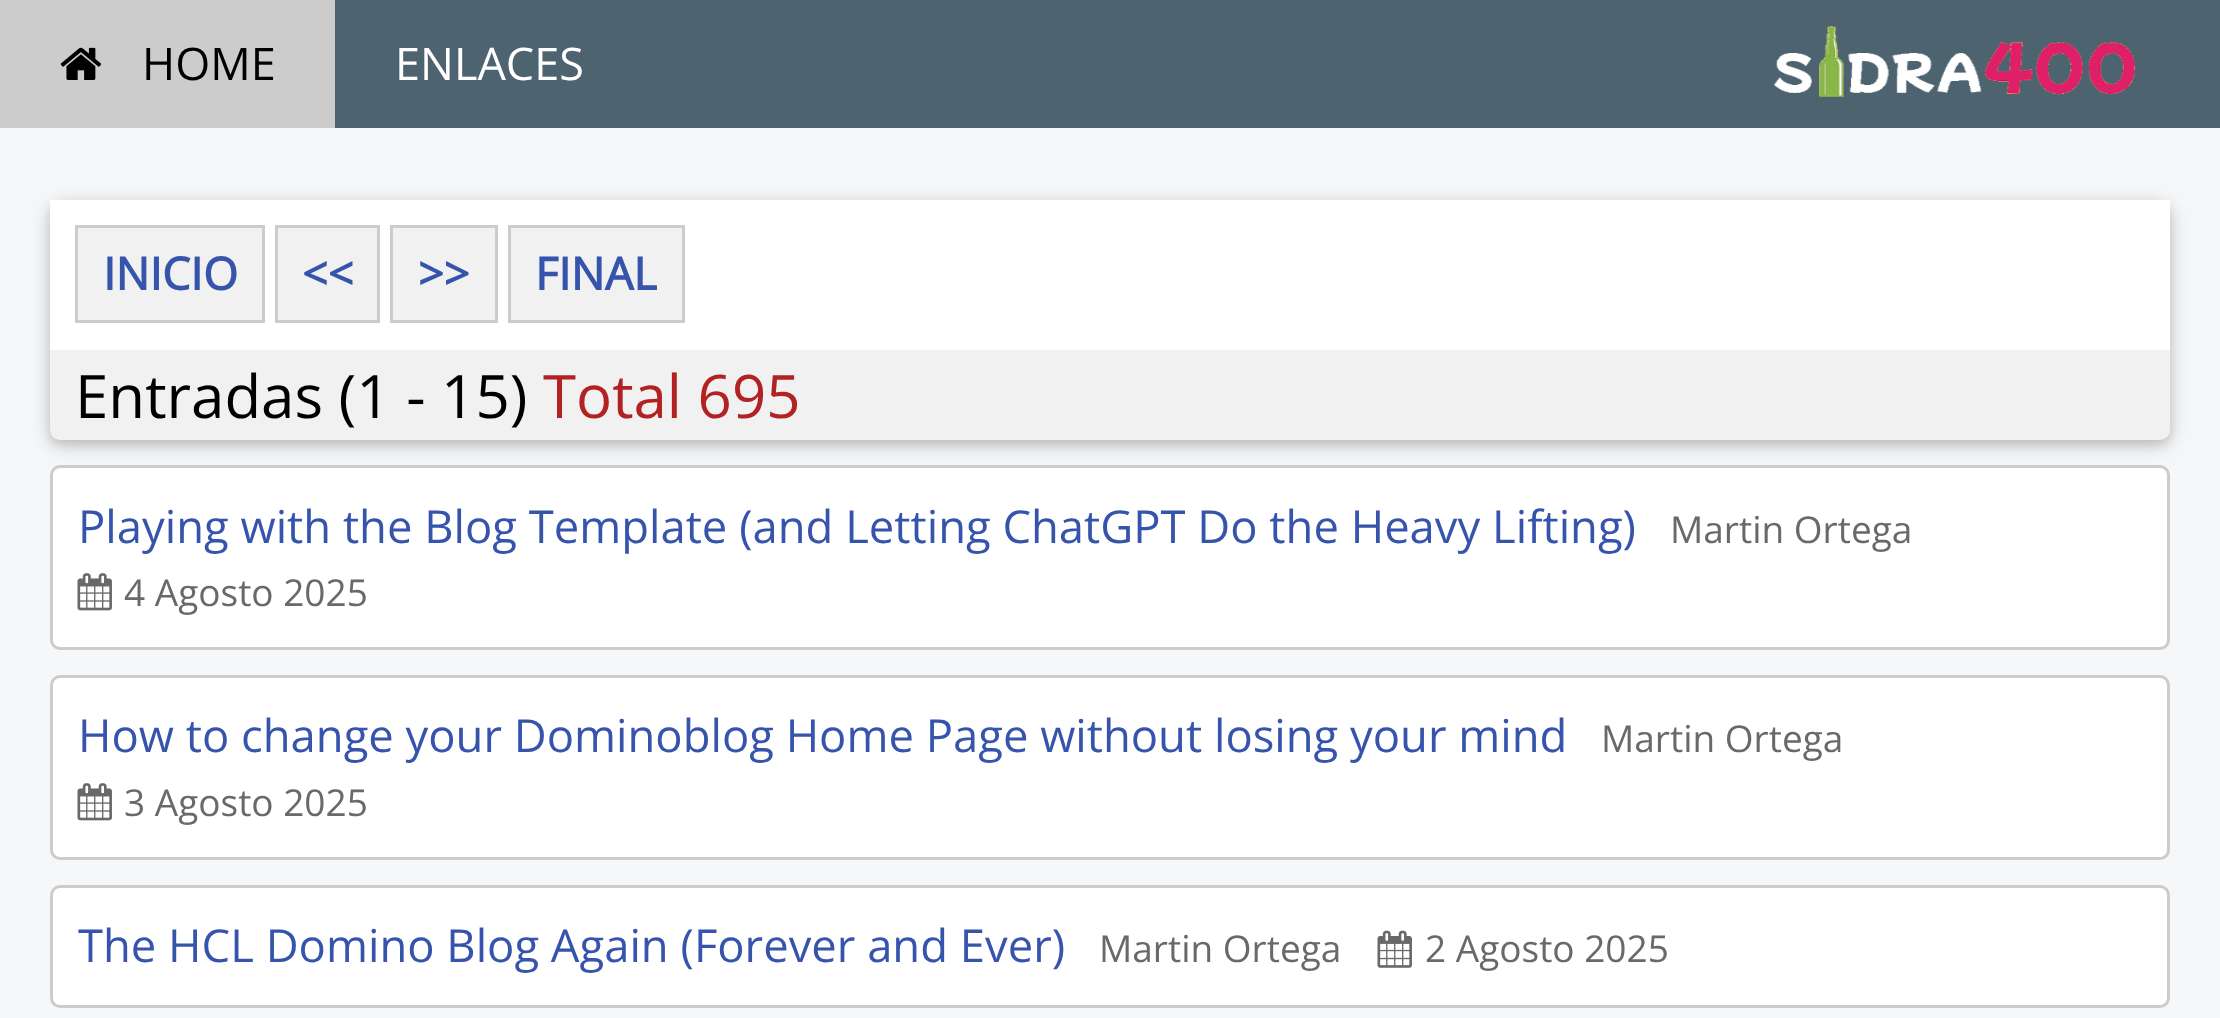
<?xml version="1.0" encoding="UTF-8"?>
<svg xmlns="http://www.w3.org/2000/svg" xmlns:xlink="http://www.w3.org/1999/xlink" width="2220" height="1018">
  <rect width="100%" height="100%" fill="#f5f7f8" />
  <rect x="335" width="1885" height="128" fill="#4d636f" />
  <rect width="335" height="128" fill="#cccccc" />
  <image x="60" y="47" width="42" height="33" xlink:href="image1.png" />
  <image x="1774" y="26" width="362" height="71" xlink:href="image2.png" />
  <rect x="50" y="205" width="2120" height="240" rx="10" fill="#000000" fill-opacity="0.12" filter="blur(12.5px)" />
  <rect x="50" y="205" width="2120" height="240" rx="10" fill="#000000" fill-opacity="0.16" filter="blur(6px)" />
  <rect x="50" y="200" width="2120" height="240" rx="10" fill="#f1f1f1" />
  <rect x="50" y="200" width="2120" height="150" fill="#ffffff" />
  <rect x="76.5" y="226.5" width="187" height="95" fill="#f1f1f1" stroke="#cccccc" stroke-width="3" />
  <rect x="276.5" y="226.5" width="102" height="95" fill="#f1f1f1" stroke="#cccccc" stroke-width="3" />
  <rect x="391.5" y="226.5" width="105" height="95" fill="#f1f1f1" stroke="#cccccc" stroke-width="3" />
  <rect x="509.5" y="226.5" width="174" height="95" fill="#f1f1f1" stroke="#cccccc" stroke-width="3" />
  <rect x="51.5" y="466.5" width="2117" height="182" rx="8.5" fill="#ffffff" stroke="#cccccc" stroke-width="3" />
  <image x="77" y="573" width="35" height="38" xlink:href="image3.png" />
  <rect x="51.5" y="676.5" width="2117" height="182" rx="8.5" fill="#ffffff" stroke="#cccccc" stroke-width="3" />
  <image x="77" y="783" width="35" height="38" xlink:href="image3.png" />
  <rect x="51.5" y="886.5" width="2117" height="120" rx="8.5" fill="#ffffff" stroke="#cccccc" stroke-width="3" />
  <image x="1377" y="930" width="35" height="38" xlink:href="image4.png" />
  <text x="142" y="80" style="font-family: Open Sans; font-size: 45px; fill: #000000">HOME</text>
  <text x="395" y="80" style="font-family: Open Sans; font-size: 45px; fill: #ffffff">ENLACES</text>
  <text x="103" y="290" style="font-family: Open Sans; font-size: 45px; font-weight: bold; fill: #3654ac">INICIO</text>
  <text x="302" y="290" style="font-family: Open Sans; font-size: 45px; font-weight: bold; fill: #3654ac">&lt;&lt;</text>
  <text x="418" y="290" style="font-family: Open Sans; font-size: 45px; font-weight: bold; fill: #3654ac">&gt;&gt;</text>
  <text x="535" y="290" style="font-family: Open Sans; font-size: 45px; font-weight: bold; fill: #3654ac">FINAL</text>
  <text x="75" y="418" style="font-family: Open Sans; font-size: 60px; fill: #000000">Entradas (1 - 15)</text>
  <text x="543" y="418" style="font-family: Open Sans; font-size: 60px; fill: #b22222">Total 695</text>
  <text x="78" y="543" style="font-family: Open Sans; font-size: 45.4px; fill: #3654ac">Playing with the Blog Template (and Letting ChatGPT Do the Heavy Lifting)</text>
  <text x="1670" y="543" style="font-family: Open Sans; font-size: 37px; fill: #696969">Martin Ortega</text>
  <text x="124" y="606" style="font-family: Open Sans; font-size: 37px; fill: #696969">4 Agosto 2025</text>
  <text x="78" y="752" style="font-family: Open Sans; font-size: 45.4px; fill: #3654ac">How to change your Dominoblog Home Page without losing your mind</text>
  <text x="1601" y="752" style="font-family: Open Sans; font-size: 37px; fill: #696969">Martin Ortega</text>
  <text x="124" y="816" style="font-family: Open Sans; font-size: 37px; fill: #696969">3 Agosto 2025</text>
  <text x="78" y="962" style="font-family: Open Sans; font-size: 45.4px; fill: #3654ac">The HCL Domino Blog Again (Forever and Ever)</text>
  <text x="1099" y="962" style="font-family: Open Sans; font-size: 37px; fill: #696969">Martin Ortega</text>
  <text x="1425" y="962" style="font-family: Open Sans; font-size: 37px; fill: #696969">2 Agosto 2025</text>
</svg>
